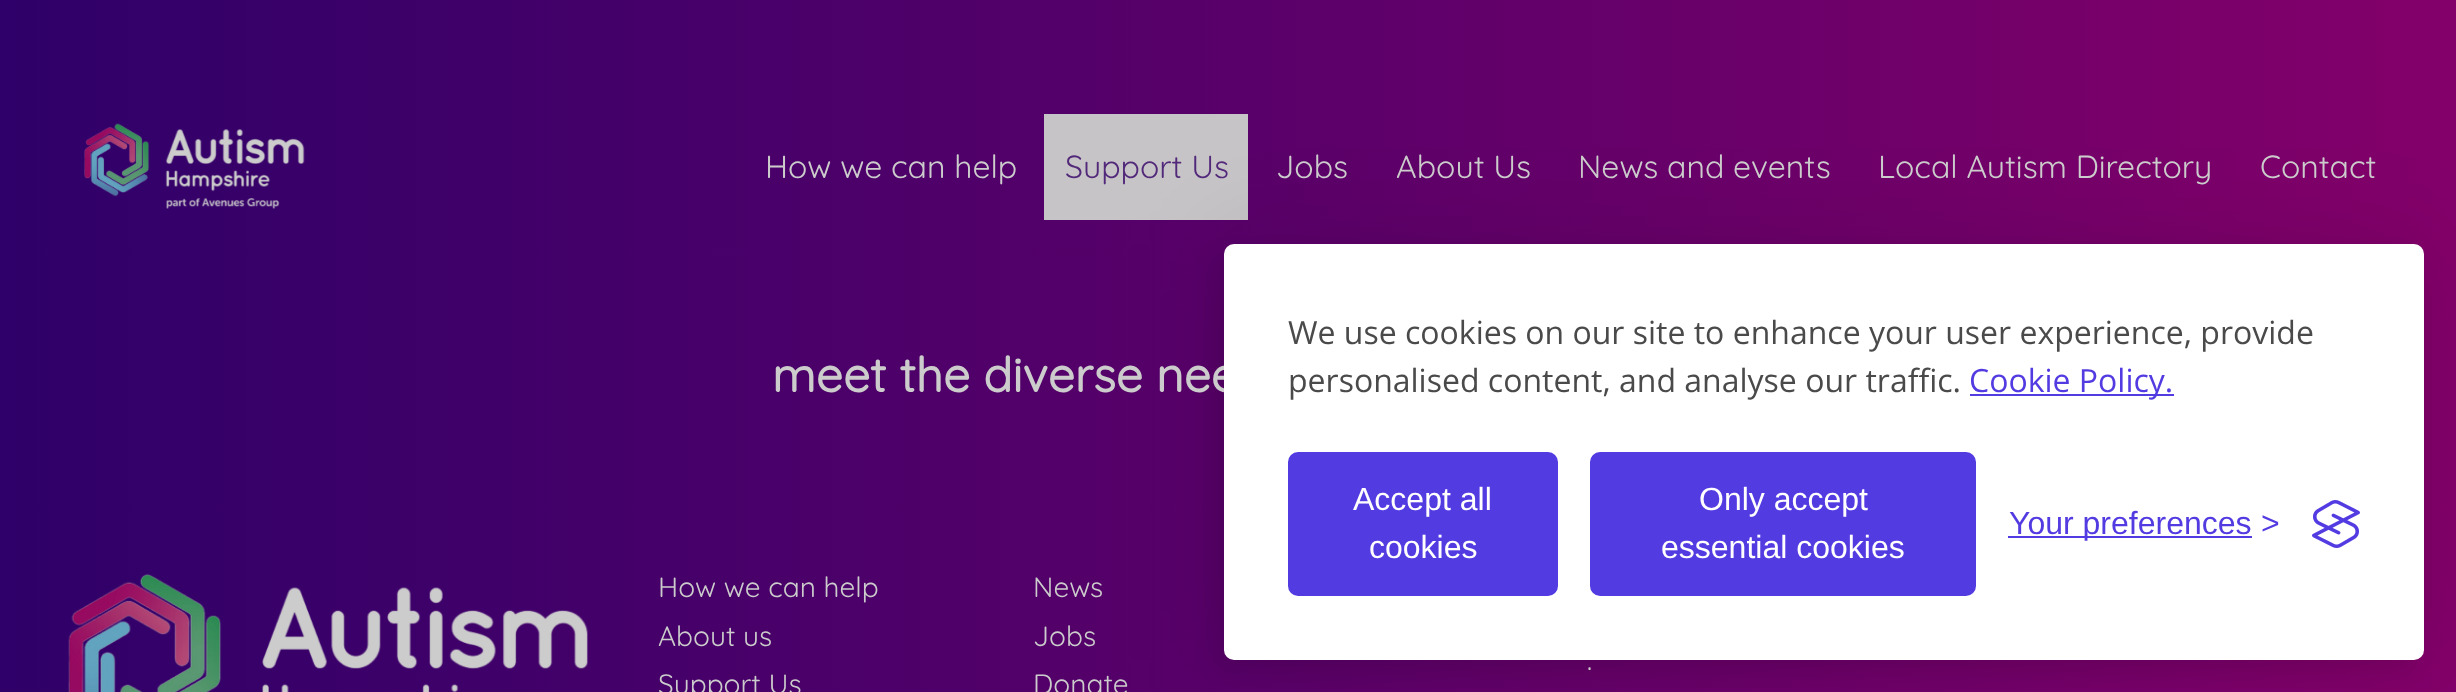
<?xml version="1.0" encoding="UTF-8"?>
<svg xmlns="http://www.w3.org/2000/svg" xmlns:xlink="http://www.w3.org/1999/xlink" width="2456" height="692">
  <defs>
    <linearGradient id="g1" gradientUnits="userSpaceOnUse" x1="0" y1="167" x2="2456" y2="167"><stop offset="0" stop-color="#2f0069" /><stop offset="1" stop-color="#83006a" /></linearGradient>
    <linearGradient id="g2" gradientUnits="userSpaceOnUse" x1="0" y1="554" x2="2456" y2="554"><stop offset="0" stop-color="#2f0069" /><stop offset="1" stop-color="#83006a" /></linearGradient>
  </defs>
  <rect width="100%" height="100%" fill="#ffffff" />
  <rect width="2456" height="334" fill="url(#g1)" />
  <image x="84" y="123" width="221" height="86" xlink:href="image1.png" />
  <rect x="1044" y="114" width="204" height="106" fill="#c7c4c7" />
  <rect y="334" width="2456" height="358" fill="url(#g2)" />
  <image x="68" y="574" width="520" height="118" xlink:href="image2.png" />
  <rect x="1224" y="244" width="1200" height="416" rx="10" fill="#000000" fill-opacity="0.1" filter="blur(50px)" />
  <rect x="1214" y="254" width="1200" height="416" rx="10" fill="#000000" fill-opacity="0.07" filter="blur(10px)" />
  <text x="765" y="178" style="font-family: Quicksand; font-size: 32px; font-weight: 300; fill: #cccccc">How we can help</text>
  <text x="1065" y="178" style="font-family: Quicksand; font-size: 32px; font-weight: 300; fill: #52297a">Support Us</text>
  <text x="1276" y="178" style="font-family: Quicksand; font-size: 32px; font-weight: 300; fill: #cccccc">Jobs</text>
  <text x="1396" y="178" style="font-family: Quicksand; font-size: 32px; font-weight: 300; fill: #cccccc">About Us</text>
  <text x="1578" y="178" style="font-family: Quicksand; font-size: 32px; font-weight: 300; fill: #cccccc">News and events</text>
  <text x="1878" y="178" style="font-family: Quicksand; font-size: 32px; font-weight: 300; fill: #cccccc">Local Autism Directory</text>
  <text x="2260" y="178" style="font-family: Quicksand; font-size: 32px; font-weight: 300; fill: #cccccc">Contact</text>
  <text x="772" y="392" style="font-family: Quicksand; font-size: 48px; font-weight: bold; fill: #cccccc">meet the diverse nee</text>
  <text x="658" y="597" style="font-family: Quicksand; font-size: 28px; font-weight: 300; fill: #cccccc">How we can help</text>
  <text x="658" y="646" style="font-family: Quicksand; font-size: 28px; font-weight: 300; fill: #cccccc">About us</text>
  <text x="658" y="694" style="font-family: Quicksand; font-size: 28px; font-weight: 300; fill: #cccccc">Support Us</text>
  <text x="1033" y="597" style="font-family: Quicksand; font-size: 28px; font-weight: 300; fill: #cccccc">News</text>
  <text x="1033" y="646" style="font-family: Quicksand; font-size: 28px; font-weight: 300; fill: #cccccc">Jobs</text>
  <text x="1033" y="694" style="font-family: Quicksand; font-size: 28px; font-weight: 300; fill: #cccccc">Donate</text>
  <text x="1587" y="670" style="font-family: Quicksand; font-size: 28px; font-weight: 300; fill: #cccccc">.</text>
  <rect x="1224" y="244" width="1200" height="416" rx="10" fill="#ffffff" />
  <text x="1288" y="344" style="font-family: Open Sans; font-size: 32px; fill: #4a4a4a">We use cookies on our site to enhance your user experience, provide</text>
  <text x="1288" y="392" style="font-family: Open Sans; font-size: 32px; fill: #4a4a4a">personalised content, and analyse our traffic.</text>
  <rect x="1970" y="394" width="204" height="2" fill="#533be2" />
  <text x="1969" y="392" style="font-family: Open Sans; font-size: 32px; fill: #533be2">Cookie Policy.</text>
  <rect x="1290" y="454" width="266" height="140" rx="8" fill="#533be2" stroke="#533be2" stroke-width="4" />
  <text x="1353" y="510" style="font-family: Liberation Sans; font-size: 32px; fill: #ffffff">Accept all</text>
  <text x="1369" y="558" style="font-family: Liberation Sans; font-size: 32px; fill: #ffffff">cookies</text>
  <rect x="1592" y="454" width="382" height="140" rx="8" fill="#533be2" stroke="#533be2" stroke-width="4" />
  <text x="1699" y="510" style="font-family: Liberation Sans; font-size: 32px; fill: #ffffff">Only accept</text>
  <text x="1661" y="558" style="font-family: Liberation Sans; font-size: 32px; fill: #ffffff">essential cookies</text>
  <rect x="2008" y="536" width="244" height="2" fill="#533be2" />
  <text x="2009" y="534" style="font-family: Liberation Sans; font-size: 32px; fill: #533be2">Your preferences</text>
  <text x="2261" y="534" style="font-family: Liberation Sans; font-size: 32px; fill: #533be2">&gt;</text>
  <image x="2312" y="500" width="48" height="48" xlink:href="image3.png" />
</svg>
